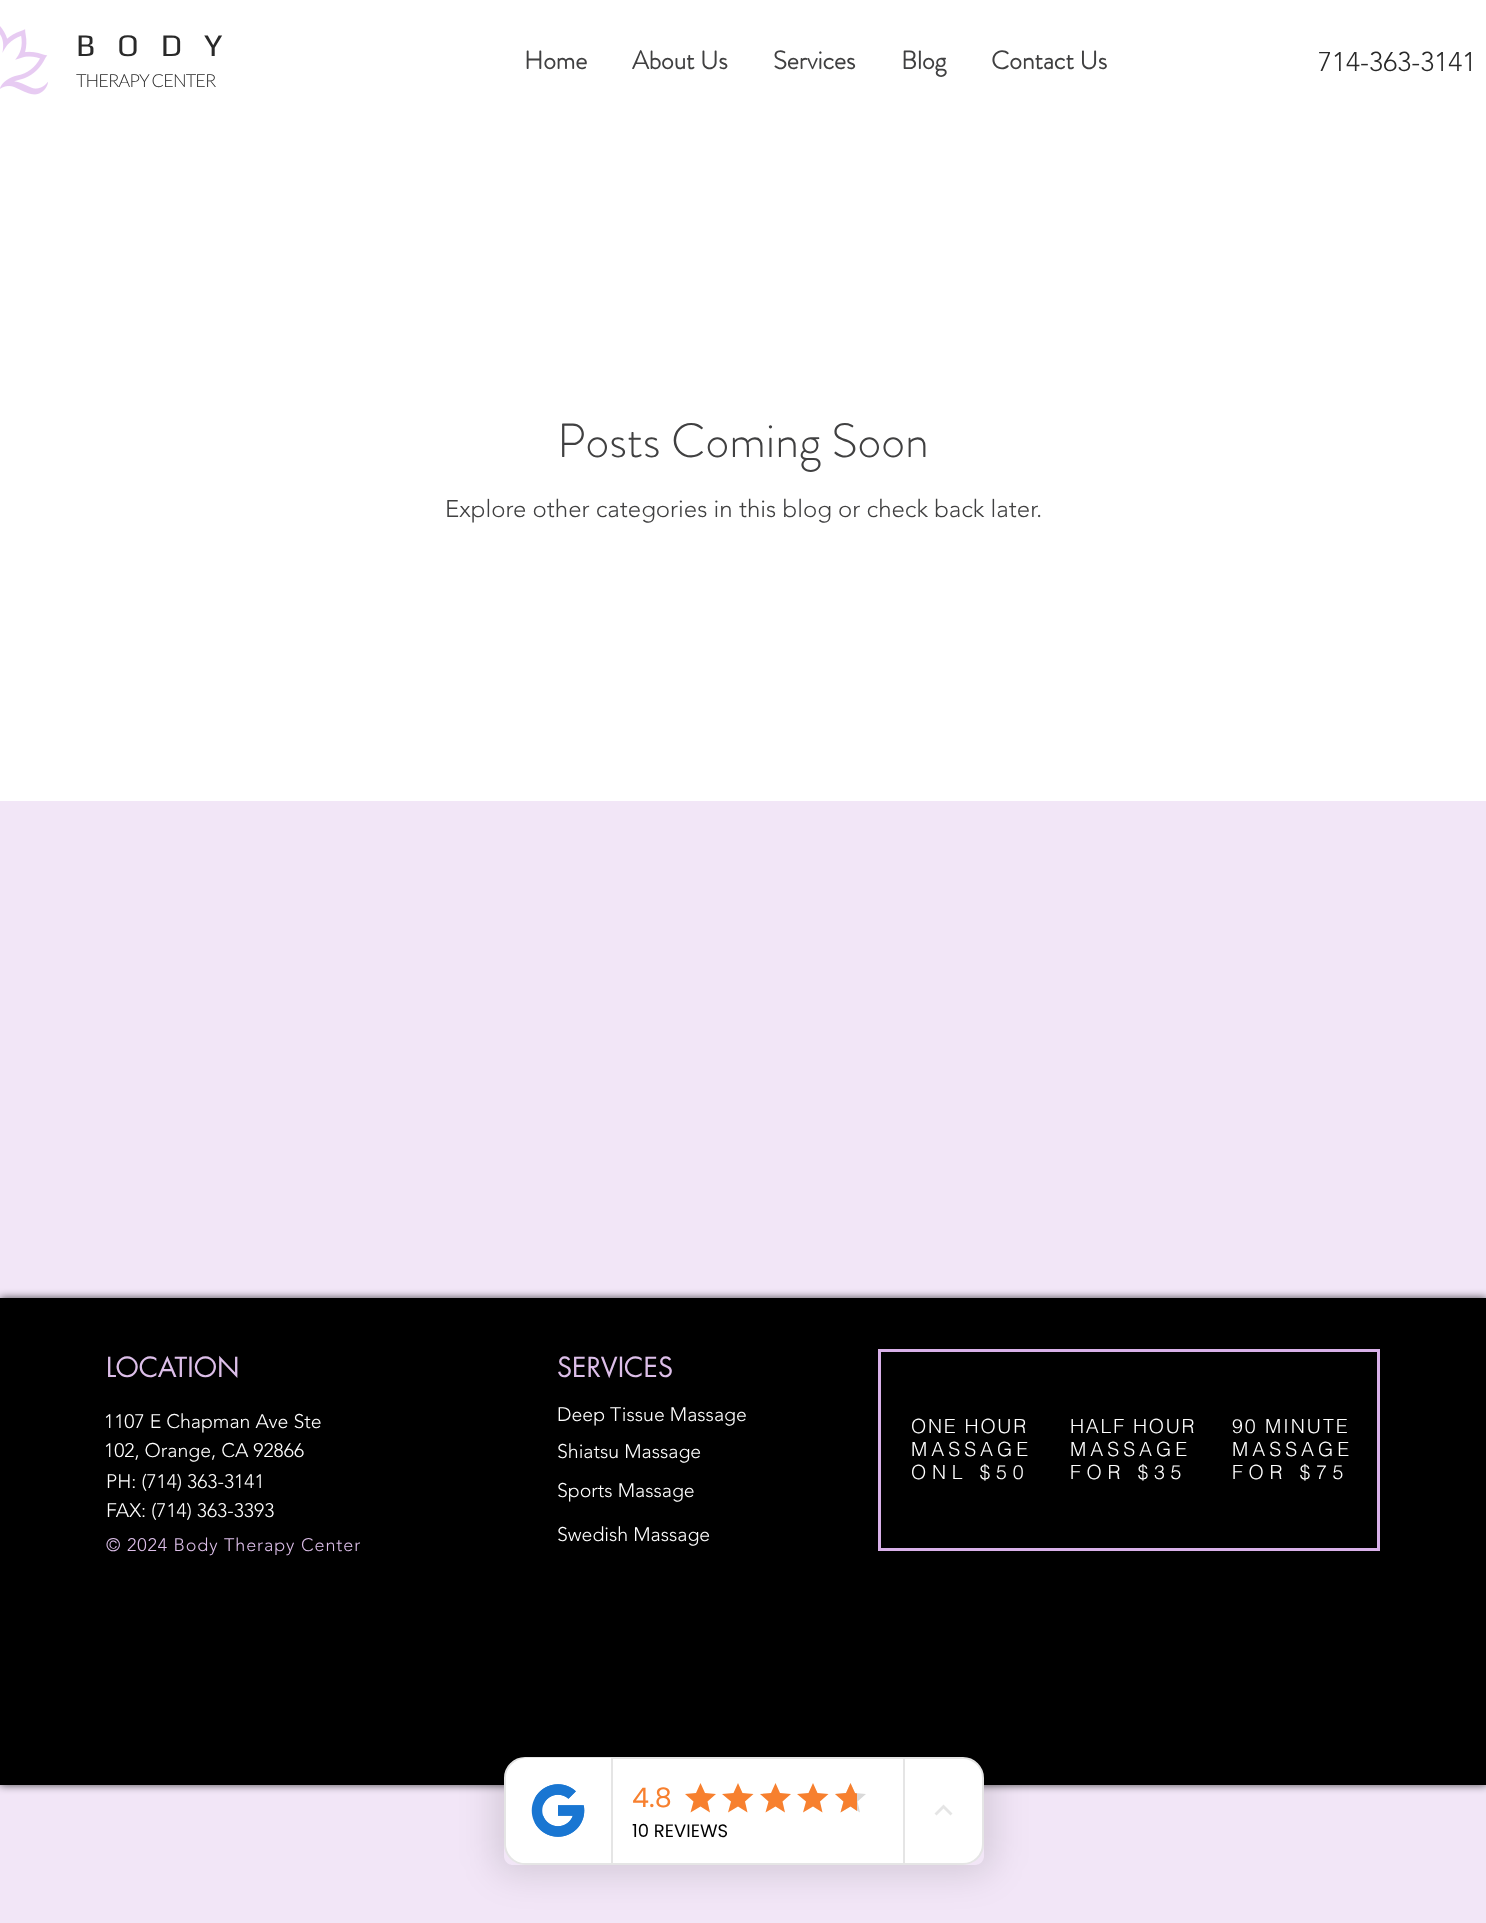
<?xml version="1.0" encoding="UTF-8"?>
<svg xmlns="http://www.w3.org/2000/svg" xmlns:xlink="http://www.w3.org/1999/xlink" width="1486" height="1923">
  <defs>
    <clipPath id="clip1"><path d="M 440 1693 h 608 v 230 h -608 z m 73 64 h 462 c 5 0 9 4 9 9 v 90 c 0 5 -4 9 -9 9 h -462 c -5 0 -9 -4 -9 -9 v -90 c 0 -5 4 -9 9 -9 z" clip-rule="evenodd" /></clipPath>
  </defs>
  <rect width="100%" height="100%" fill="#f2e6f7" />
  <rect width="1486" height="801" fill="#ffffff" />
  <image x="0" y="26" width="48" height="69" xlink:href="image1.png" />
  <rect y="1298" width="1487" height="487" fill="#000000" fill-opacity="0.7" filter="blur(4px)" />
  <rect y="1298" width="1486" height="487" fill="#000000" />
  <rect x="879.5" y="1350.5" width="499" height="199" fill="none" stroke="#d8b0e8" stroke-width="3" />
  <g clip-path="url(#clip1)">
    <rect x="495" y="1748" width="498" height="126" rx="18" fill="#000000" fill-opacity="0.12" filter="blur(18px)" />
  </g>
  <rect x="505" y="1758" width="478" height="106" rx="20" fill="#ffffff" stroke="#e5e5e5" stroke-width="2" />
  <path d="M 527 1758 h 85 v 105 h -85 c -11.5 0 -21 -9.5 -21 -21 v -63 c 0 -11.5 9.5 -21 21 -21 z" fill="#ffffff" />
  <rect x="611" y="1758" width="2" height="105" fill="#e5e5e5" />
  <image x="531" y="1784" width="54" height="53" xlink:href="image2.png" />
  <rect x="903" y="1758" width="2" height="105" fill="#e5e5e5" />
  <path d="M 700.5 1806.5 l 9.5 6 l -2.5 -11 l 8.5 -7.5 l -11 -1 l -4.5 -10 l -4.5 10 l -11 1 l 8.5 7.5 l -3 11 z" fill="#f7802f" />
  <path d="M 738 1806.5 l 9.5 6 l -2.5 -11 l 8.5 -7.5 l -11 -1 l -4.5 -10 l -4.5 10 l -11.5 1 l 9 7.5 l -3 11 z" fill="#f7802f" />
  <path d="M 775.5 1806.5 l 9.5 6 l -2.5 -11 l 8.5 -7.5 l -11 -1 l -4.5 -10 l -4.5 10 l -11 1 l 8.5 7.5 l -3 11 z" fill="#f7802f" />
  <path d="M 813 1806.5 l 9.5 6 l -2.5 -11 l 8.5 -7.5 l -11 -1 l -4.5 -10 l -4.5 10 l -11.5 1 l 9 7.5 l -3 11 z" fill="#f7802f" />
  <path d="M 850.5 1806.5 l 9.5 6 l -2.5 -11 l 8.5 -7.5 l -11 -1 l -4.5 -10 l -4.5 10 l -11 1 l 8.5 7.5 l -3 11 z" fill="#d9d9d9" />
  <path d="M 857 1793.5 v 17.5 l -6.5 -4.5 l -10 6 l 3 -11 l -8.5 -7.5 l 11 -1 l 4.5 -10 l 4.5 10 z" fill="#f7802f" />
  <path d="M 936.5 1815.5 l 7 -7 l 7 7 l 2 -2 l -9 -9 l -9 9 z" fill="#e5e5e5" />
  <text x="76" y="56" style="font-family: Play; font-size: 31.5px; letter-spacing: 22px; fill: #292929">BODY</text>
  <text x="76" y="87" style="font-family: Lato; font-size: 18px; font-weight: 300; letter-spacing: -0.9px; fill: #292929">THERAPY CENTER</text>
  <text x="524" y="69" style="font-family: 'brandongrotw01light'; font-size: 25.5px; font-weight: bold; fill: #404041">Home</text>
  <text x="632" y="69" style="font-family: 'brandongrotw01light'; font-size: 25.5px; font-weight: bold; fill: #404041">About Us</text>
  <text x="773" y="69" style="font-family: 'brandongrotw01light'; font-size: 25.5px; font-weight: bold; fill: #404041">Services</text>
  <text x="901" y="69" style="font-family: 'brandongrotw01light'; font-size: 25.5px; font-weight: bold; fill: #404041">Blog</text>
  <text x="991" y="69" style="font-family: 'brandongrotw01light'; font-size: 25.5px; font-weight: bold; fill: #404041">Contact Us</text>
  <text x="1318" y="71" style="font-family: 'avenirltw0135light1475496'; font-size: 27px; font-weight: 300; fill: #292929">714-363-3141</text>
  <text x="557" y="457" style="font-family: 'brandongrotw01light'; font-size: 48px; font-weight: 300; fill: #404041">Posts Coming Soon</text>
  <text x="445" y="517" style="font-family: 'avenirltw0135light1475496'; font-size: 24px; font-weight: 300; fill: #404041">Explore other categories in this blog or check back later.</text>
  <text x="106" y="1377" style="font-family: futura; font-size: 27px; fill: #dcbee8">LOCATION</text>
  <text x="557" y="1377" style="font-family: futura; font-size: 27px; fill: #dcbee8">SERVICES</text>
  <text x="104" y="1428" style="font-family: 'avenirltw0135light1475496'; font-size: 19.5px; font-weight: 300; fill: #ffffff">1107 E Chapman Ave Ste</text>
  <text x="104" y="1457" style="font-family: 'avenirltw0135light1475496'; font-size: 19.5px; font-weight: 300; fill: #ffffff">102, Orange, CA 92866</text>
  <text x="557" y="1421" style="font-family: 'avenirltw0135light1475496'; font-size: 19.5px; font-weight: 300; fill: #ffffff">Deep Tissue Massage</text>
  <text x="911" y="1433" style="font-family: helvetica; font-size: 19.5px; font-weight: 300; letter-spacing: 1.75px; fill: #ffffff">ONE HOUR</text>
  <text x="911" y="1456" style="font-family: helvetica; font-size: 19.5px; font-weight: 300; letter-spacing: 4px; fill: #ffffff">MASSAGE</text>
  <text x="911" y="1479" style="font-family: helvetica; font-size: 19.5px; font-weight: 300; letter-spacing: 5.75px; fill: #ffffff">ONL $50</text>
  <text x="1070" y="1433" style="font-family: helvetica; font-size: 19.5px; font-weight: 300; letter-spacing: 1.75px; fill: #ffffff">HALF HOUR</text>
  <text x="1070" y="1456" style="font-family: helvetica; font-size: 19.5px; font-weight: 300; letter-spacing: 4px; fill: #ffffff">MASSAGE</text>
  <text x="1070" y="1479" style="font-family: helvetica; font-size: 19.5px; font-weight: 300; letter-spacing: 5.75px; fill: #ffffff">FOR $35</text>
  <text x="1232" y="1433" style="font-family: helvetica; font-size: 19.5px; font-weight: 300; letter-spacing: 2px; fill: #ffffff">90 MINUTE</text>
  <text x="1232" y="1456" style="font-family: helvetica; font-size: 19.5px; font-weight: 300; letter-spacing: 4px; fill: #ffffff">MASSAGE</text>
  <text x="1232" y="1479" style="font-family: helvetica; font-size: 19.5px; font-weight: 300; letter-spacing: 5.75px; fill: #ffffff">FOR $75</text>
  <text x="557" y="1458" style="font-family: 'avenirltw0135light1475496'; font-size: 19.5px; font-weight: 300; fill: #ffffff">Shiatsu Massage</text>
  <text x="106" y="1488" style="font-family: 'avenirltw0135light1475496'; font-size: 19.5px; font-weight: 300; fill: #ffffff">PH: (714) 363-3141</text>
  <text x="106" y="1517" style="font-family: 'avenirltw0135light1475496'; font-size: 19.5px; font-weight: 300; fill: #ffffff">FAX: (714) 363-3393</text>
  <text x="557" y="1497" style="font-family: 'avenirltw0135light1475496'; font-size: 19.5px; font-weight: 300; fill: #ffffff">Sports Massage</text>
  <text x="106" y="1551" style="font-family: 'avenirltw0135light1475496'; font-size: 18px; font-weight: 300; letter-spacing: 0.9px; fill: #dcbee8">© 2024 Body Therapy Center</text>
  <text x="557" y="1541" style="font-family: 'avenirltw0135light1475496'; font-size: 19.5px; font-weight: 300; fill: #ffffff">Swedish Massage</text>
  <text x="632" y="1807" style="font-family: Poppins; font-size: 27px; fill: #f7802f">4.8</text>
  <text x="632" y="1837" style="font-family: Poppins; font-size: 18px; fill: #000000">10 REVIEWS</text>
</svg>
